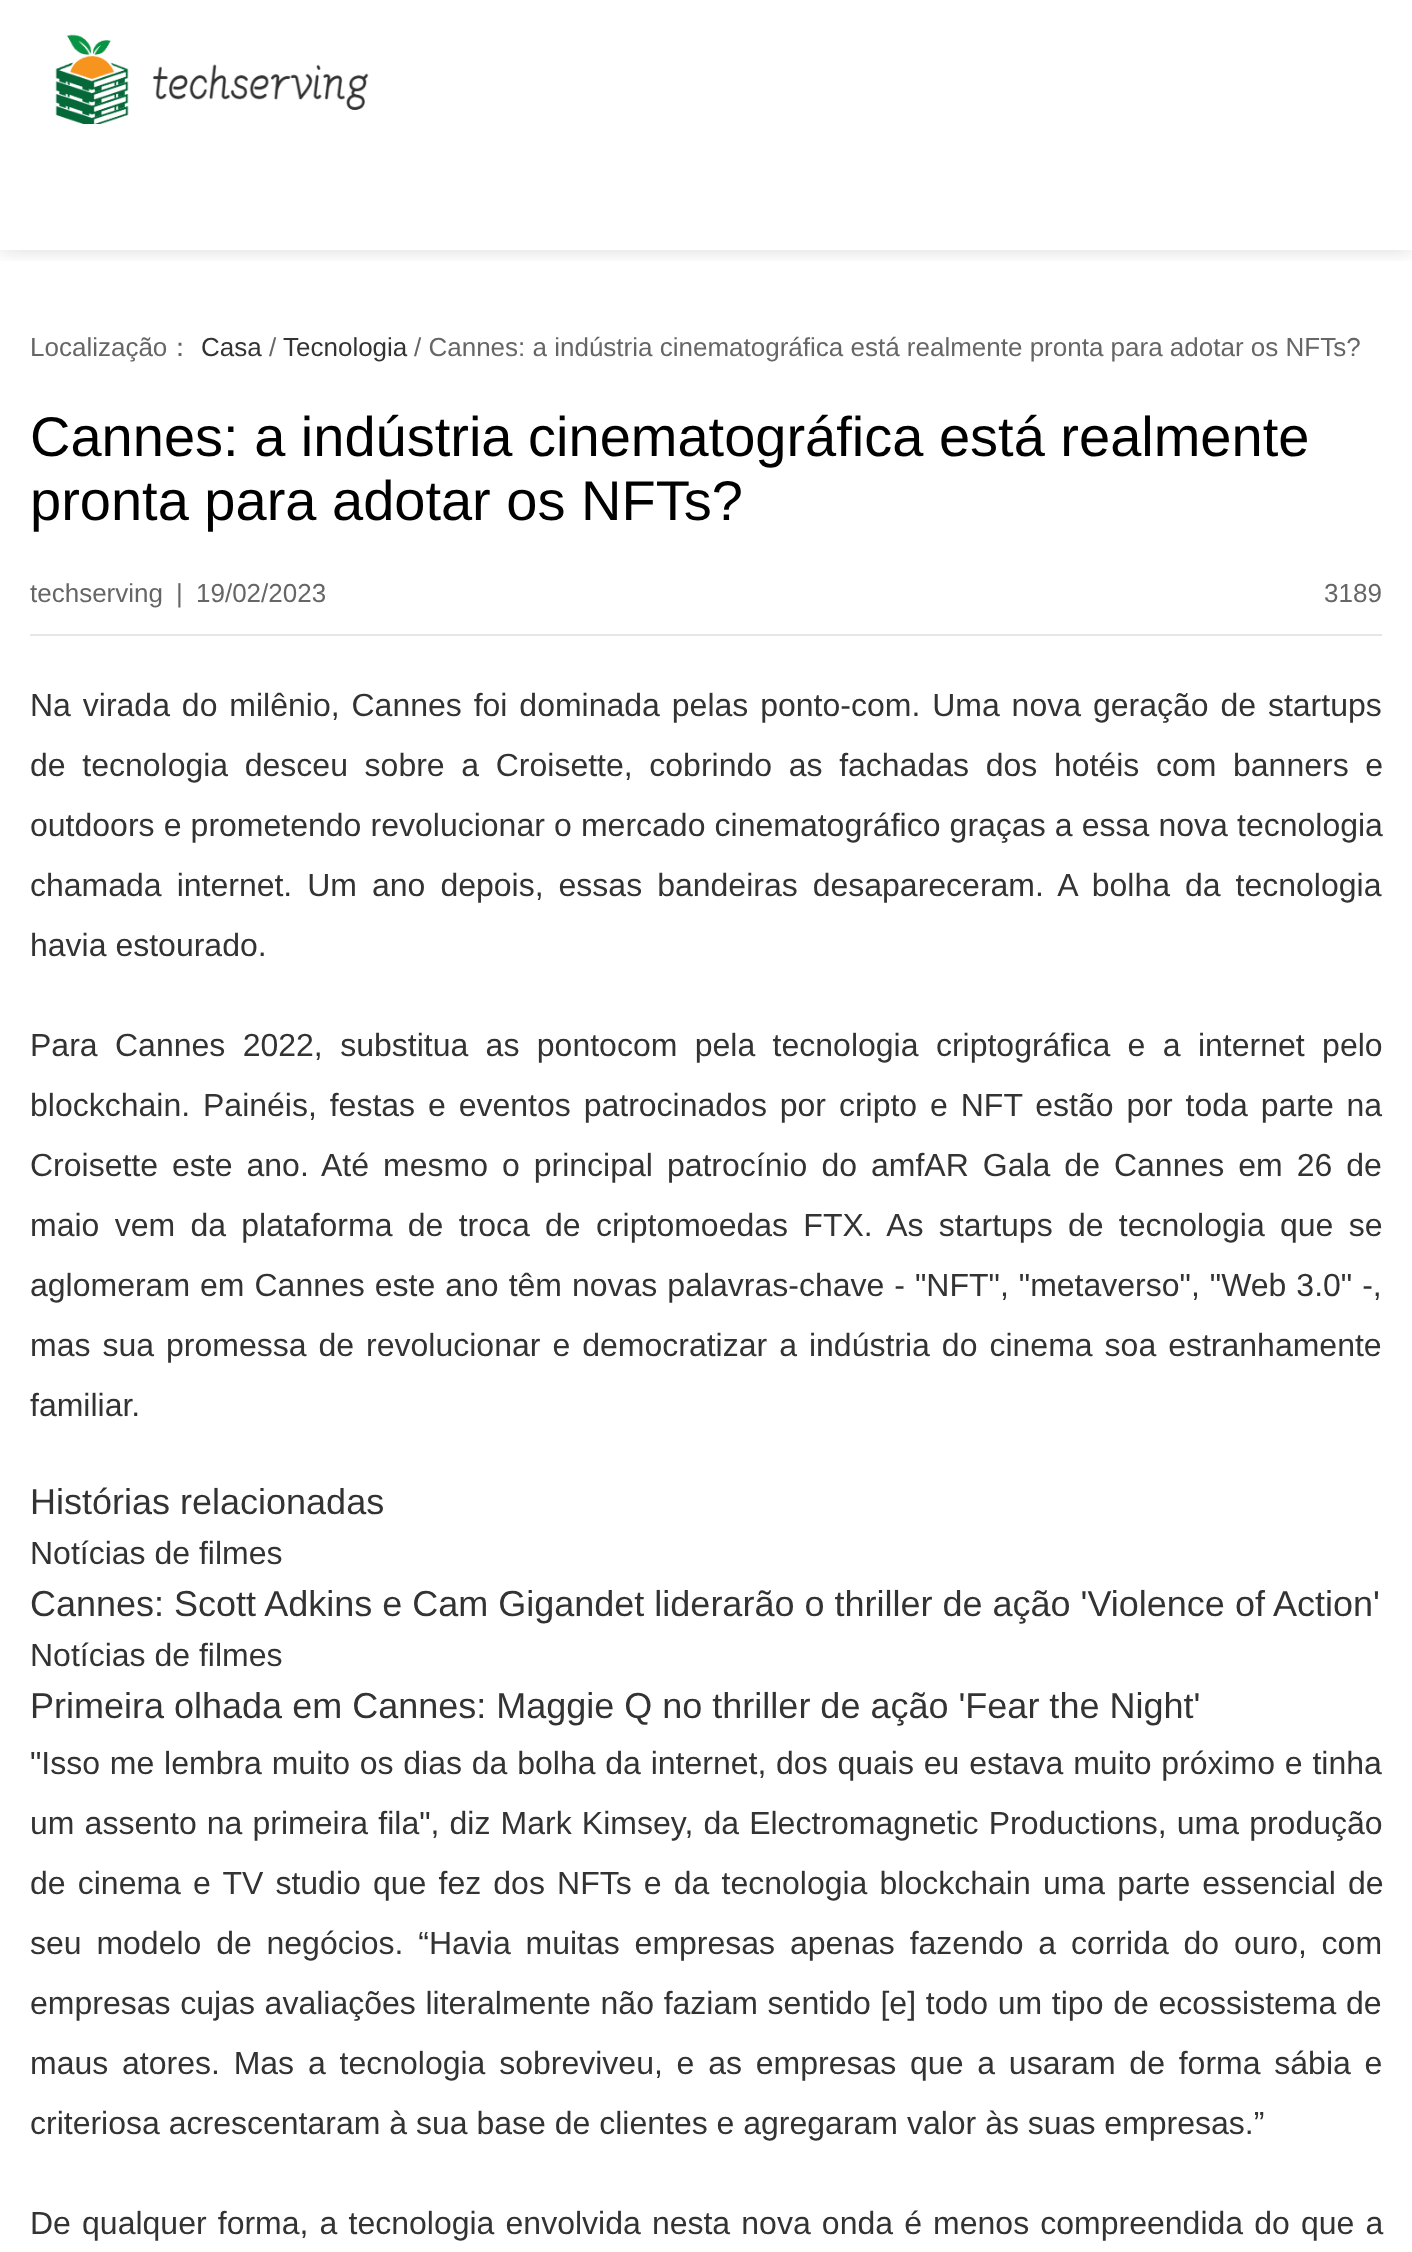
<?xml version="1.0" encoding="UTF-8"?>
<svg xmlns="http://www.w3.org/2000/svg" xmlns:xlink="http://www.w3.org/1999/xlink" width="1412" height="2252">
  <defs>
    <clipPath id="clip1"><rect x="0" y="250" width="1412" height="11" /></clipPath>
  </defs>
  <rect width="100%" height="100%" fill="#ffffff" />
  <g clip-path="url(#clip1)">
    <rect width="1412" height="250" fill="#000000" fill-opacity="0.15" filter="blur(10px)" />
  </g>
  <image x="55" y="34" width="314" height="90" xlink:href="image1.png" />
  <rect x="30" y="634" width="1352" height="2" fill="#e6e6e6" />
  <text x="30" y="356" style="font-family: Liberation Sans; font-size: 26px; fill: #666666">Localização</text>
  <text x="167" y="356" style="font-family: WenQuanYi Zen Hei; font-size: 26px; font-weight: 500; fill: #666666">：</text>
  <text x="201" y="356" style="font-family: Liberation Sans; font-size: 26px; fill: #333333">Casa</text>
  <text x="269" y="356" style="font-family: Liberation Sans; font-size: 26px; fill: #666666">/</text>
  <text x="283" y="356" style="font-family: Liberation Sans; font-size: 26px; fill: #333333">Tecnologia</text>
  <text x="414" y="356" style="font-family: Liberation Sans; font-size: 26px; fill: #666666">/ Cannes: a indústria cinematográfica está realmente pronta para adotar os NFTs?</text>
  <text x="30" y="456" style="font-family: Liberation Sans; font-size: 56px; fill: #000000">Cannes: a indústria cinematográfica está realmente</text>
  <text x="30" y="520" style="font-family: Liberation Sans; font-size: 56px; fill: #000000">pronta para adotar os NFTs?</text>
  <text x="30" y="602" style="font-family: Liberation Sans; font-size: 26px; fill: #666666">techserving</text>
  <text x="176" y="602" style="font-family: Liberation Sans; font-size: 26px; fill: #666666">|</text>
  <text x="196" y="602" style="font-family: Liberation Sans; font-size: 26px; fill: #666666">19/02/2023</text>
  <text x="1324" y="602" style="font-family: Liberation Sans; font-size: 26px; fill: #666666">3189</text>
  <text x="30" y="716" word-spacing="3" style="font-family: Liberation Sans; font-size: 32px; fill: #333333">Na virada do milênio, Cannes foi dominada pelas ponto-com. Uma nova geração de startups</text>
  <text x="30" y="776" word-spacing="7.75" style="font-family: Liberation Sans; font-size: 32px; fill: #333333">de tecnologia desceu sobre a Croisette, cobrindo as fachadas dos hotéis com banners e</text>
  <text x="30" y="836" word-spacing="0.25" style="font-family: Liberation Sans; font-size: 32px; fill: #333333">outdoors e prometendo revolucionar o mercado cinematográfico graças a essa nova tecnologia</text>
  <text x="30" y="896" word-spacing="6.1" style="font-family: Liberation Sans; font-size: 32px; fill: #333333">chamada internet. Um ano depois, essas bandeiras desapareceram. A bolha da tecnologia</text>
  <text x="30" y="956" style="font-family: Liberation Sans; font-size: 32px; fill: #333333">havia estourado.</text>
  <text x="30" y="1056" word-spacing="8.5" style="font-family: Liberation Sans; font-size: 32px; fill: #333333">Para Cannes 2022, substitua as pontocom pela tecnologia criptográfica e a internet pelo</text>
  <text x="30" y="1116" word-spacing="4" style="font-family: Liberation Sans; font-size: 32px; fill: #333333">blockchain. Painéis, festas e eventos patrocinados por cripto e NFT estão por toda parte na</text>
  <text x="30" y="1176" word-spacing="5.1" style="font-family: Liberation Sans; font-size: 32px; fill: #333333">Croisette este ano. Até mesmo o principal patrocínio do amfAR Gala de Cannes em 26 de</text>
  <text x="30" y="1236" word-spacing="6.4" style="font-family: Liberation Sans; font-size: 32px; fill: #333333">maio vem da plataforma de troca de criptomoedas FTX. As startups de tecnologia que se</text>
  <text x="30" y="1296" word-spacing="1.1" style="font-family: Liberation Sans; font-size: 32px; fill: #333333">aglomeram em Cannes este ano têm novas palavras-chave - "NFT", "metaverso", "Web 3.0" -,</text>
  <text x="30" y="1356" word-spacing="3.1" style="font-family: Liberation Sans; font-size: 32px; fill: #333333">mas sua promessa de revolucionar e democratizar a indústria do cinema soa estranhamente</text>
  <text x="30" y="1416" style="font-family: Liberation Sans; font-size: 32px; fill: #333333">familiar.</text>
  <text x="30" y="1514" style="font-family: Liberation Sans; font-size: 36px; fill: #333333">Histórias relacionadas</text>
  <text x="30" y="1564" style="font-family: Liberation Sans; font-size: 32px; fill: #333333">Notícias de filmes</text>
  <text x="30" y="1616" style="font-family: Liberation Sans; font-size: 36px; fill: #333333">Cannes: Scott Adkins e Cam Gigandet liderarão o thriller de ação 'Violence of Action'</text>
  <text x="30" y="1666" style="font-family: Liberation Sans; font-size: 32px; fill: #333333">Notícias de filmes</text>
  <text x="30" y="1718" style="font-family: Liberation Sans; font-size: 36px; fill: #333333">Primeira olhada em Cannes: Maggie Q no thriller de ação 'Fear the Night'</text>
  <text x="30" y="1774" word-spacing="0.9" style="font-family: Liberation Sans; font-size: 32px; fill: #333333">"Isso me lembra muito os dias da bolha da internet, dos quais eu estava muito próximo e tinha</text>
  <text x="30" y="1834" word-spacing="1.25" style="font-family: Liberation Sans; font-size: 32px; fill: #333333">um assento na primeira fila", diz Mark Kimsey, da Electromagnetic Productions, uma produção</text>
  <text x="30" y="1894" word-spacing="3.25" style="font-family: Liberation Sans; font-size: 32px; fill: #333333">de cinema e TV studio que fez dos NFTs e da tecnologia blockchain uma parte essencial de</text>
  <text x="30" y="1954" word-spacing="5.9" style="font-family: Liberation Sans; font-size: 32px; fill: #333333">seu modelo de negócios. “Havia muitas empresas apenas fazendo a corrida do ouro, com</text>
  <text x="30" y="2014" word-spacing="0.8" style="font-family: Liberation Sans; font-size: 32px; fill: #333333">empresas cujas avaliações literalmente não faziam sentido [e] todo um tipo de ecossistema de</text>
  <text x="30" y="2074" word-spacing="4.9" style="font-family: Liberation Sans; font-size: 32px; fill: #333333">maus atores. Mas a tecnologia sobreviveu, e as empresas que a usaram de forma sábia e</text>
  <text x="30" y="2134" style="font-family: Liberation Sans; font-size: 32px; fill: #333333">criteriosa acrescentaram à sua base de clientes e agregaram valor às suas empresas.”</text>
  <text x="30" y="2234" word-spacing="2.25" style="font-family: Liberation Sans; font-size: 32px; fill: #333333">De qualquer forma, a tecnologia envolvida nesta nova onda é menos compreendida do que a</text>
</svg>
